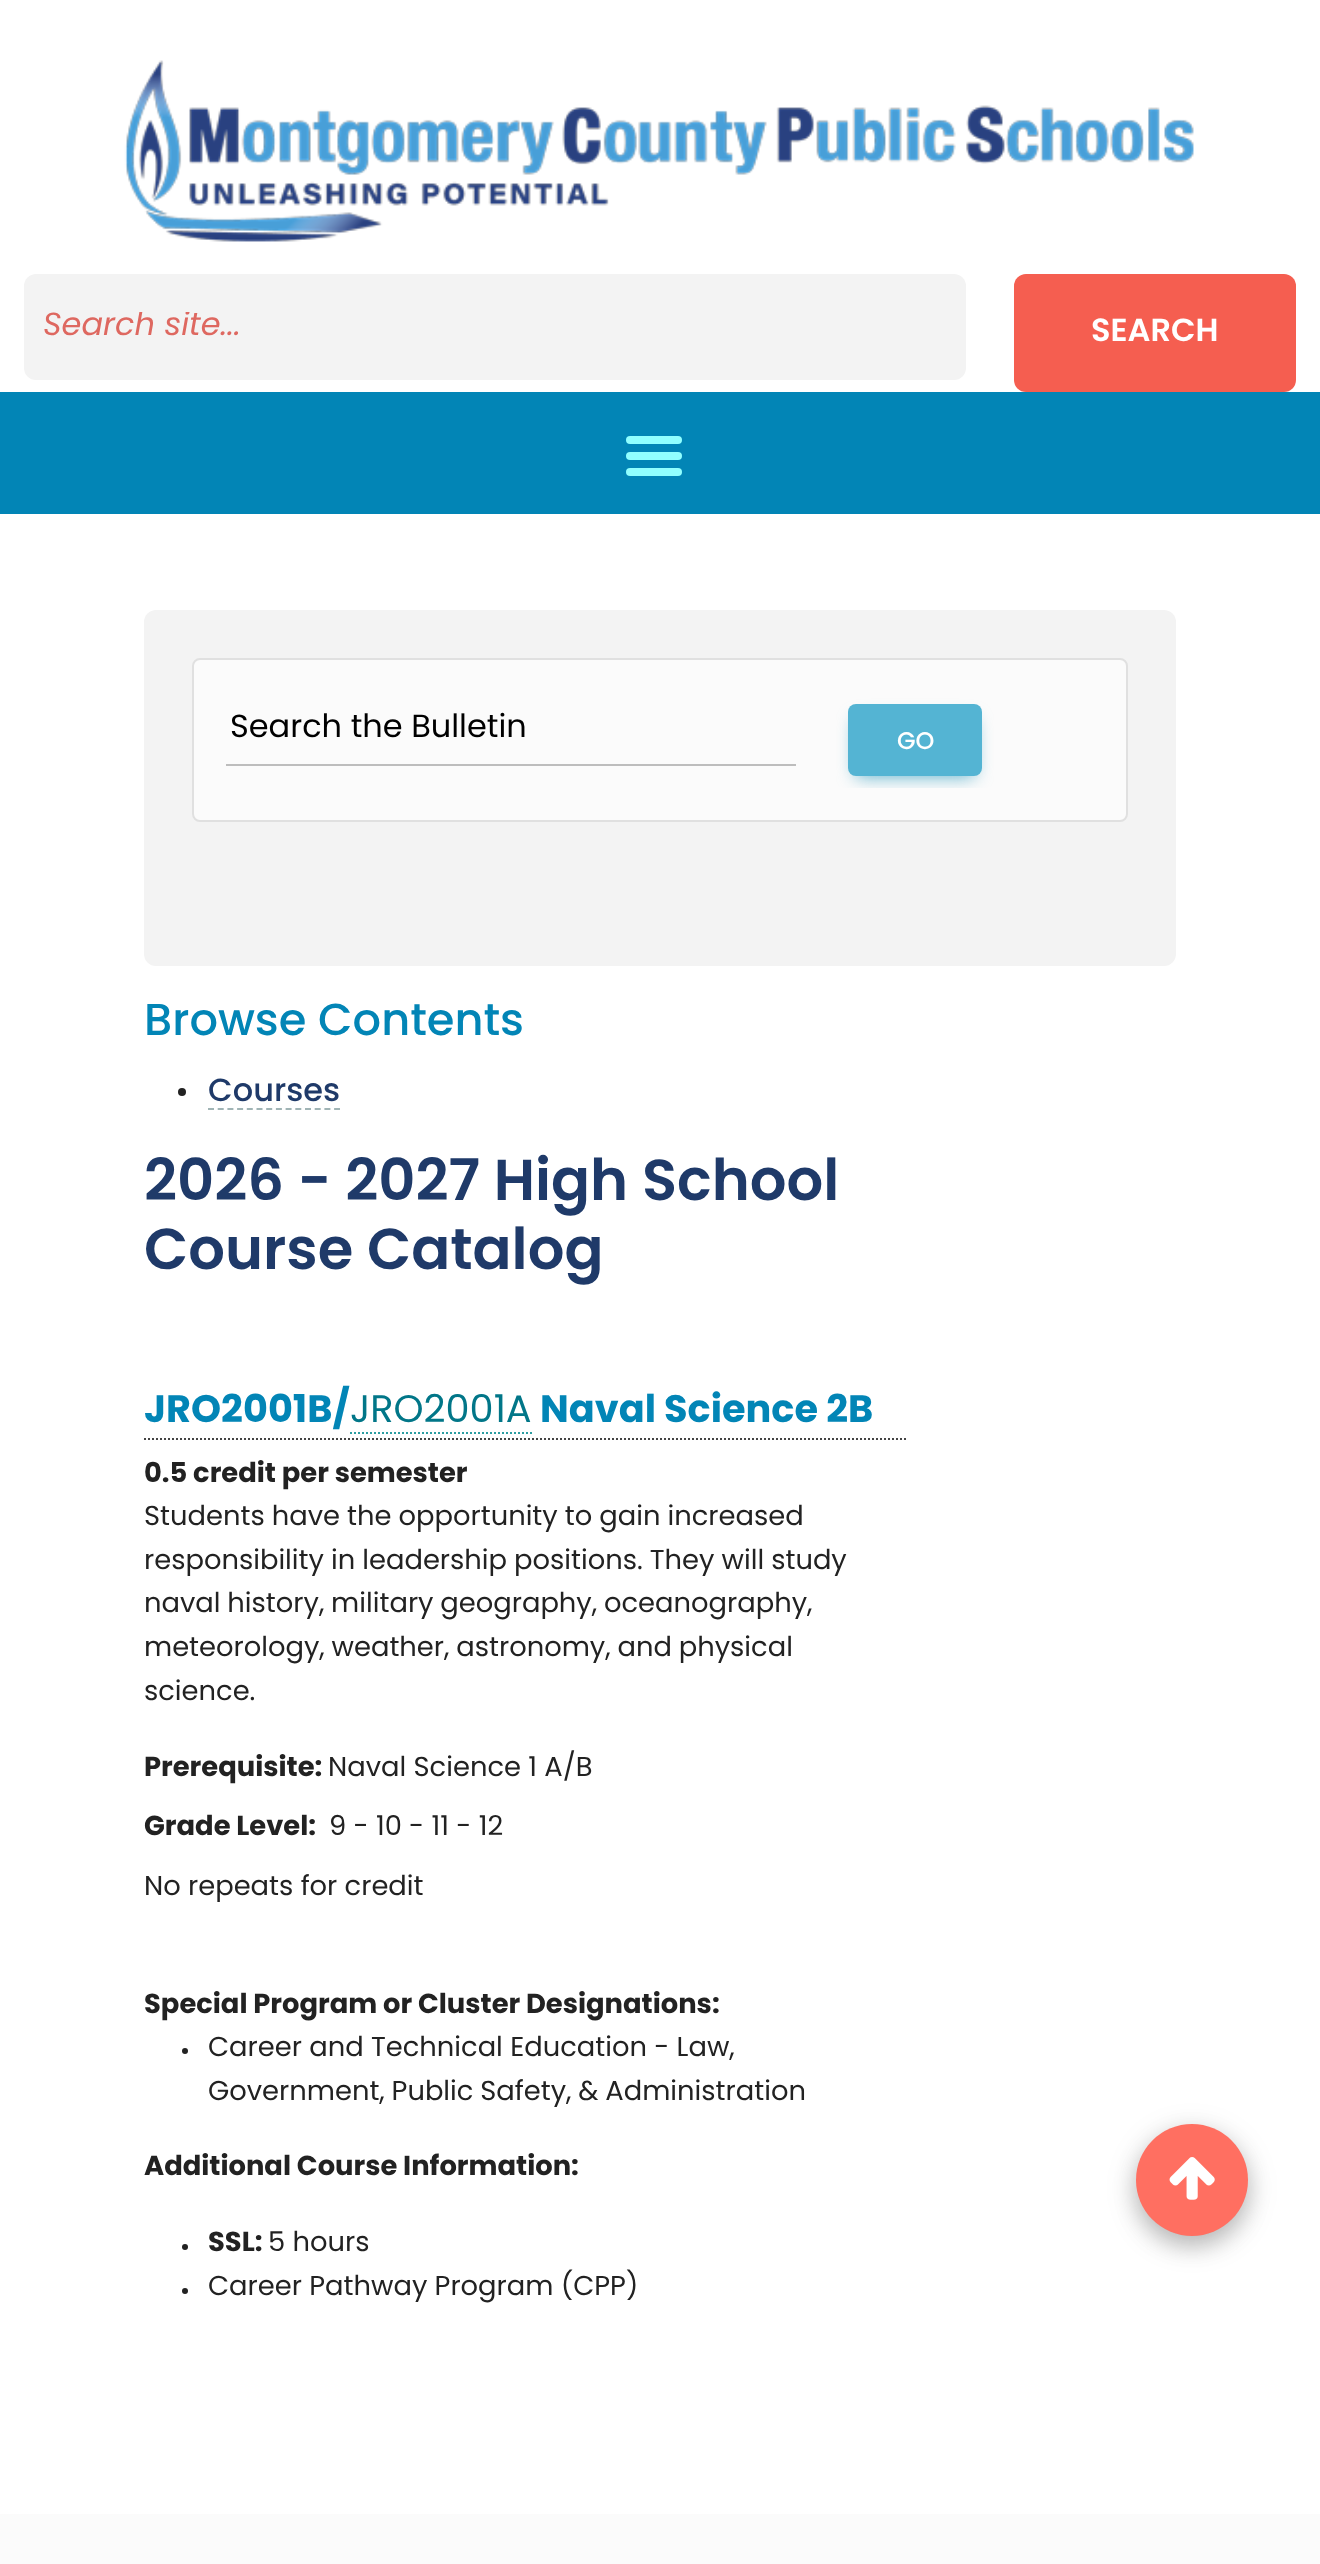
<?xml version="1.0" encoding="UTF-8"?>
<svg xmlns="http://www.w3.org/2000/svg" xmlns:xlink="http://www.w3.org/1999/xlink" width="1320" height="2564">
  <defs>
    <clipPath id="clip1"><rect x="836" y="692" width="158" height="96" rx="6" /></clipPath>
    <clipPath id="clip2"><rect x="42" y="312" width="898" height="32" /></clipPath>
  </defs>
  <rect width="100%" height="100%" fill="#ffffff" />
  <image x="124" y="60" width="1070" height="182" xlink:href="image1.png" />
  <rect x="24" y="274" width="942" height="106" rx="12" fill="#f3f3f3" />
  <rect x="1014" y="274" width="282" height="118" rx="12" fill="#f55e50" />
  <rect y="392" width="1320" height="122" fill="#0285b6" />
  <rect x="626" y="452" width="56" height="8" rx="4" fill="#91ffff" />
  <rect x="626" y="436" width="56" height="8" rx="4" fill="#91ffff" />
  <rect x="626" y="468" width="56" height="8" rx="4" fill="#91ffff" />
  <rect x="144" y="610" width="1032" height="356" rx="12" fill="#f3f3f3" />
  <rect x="193" y="659" width="934" height="162" rx="7" fill="#fbfbfb" stroke="#e0e0e0" stroke-width="2" />
  <rect x="226" y="764" width="570" height="2" fill="#bdbdbd" />
  <g clip-path="url(#clip1)">
    <rect x="856" y="720" width="118" height="56" fill="#50abc8" filter="blur(9px)" />
  </g>
  <rect x="848" y="704" width="134" height="72" rx="8" fill="#54b4d3" />
  <circle cx="182" cy="1092" r="4" fill="#222222" />
  <path d="M 208 1109 h 132" fill="none" stroke="#a0b4b5" stroke-width="2" stroke-dasharray="6 3.7" />
  <path d="M 144 1439 h 762" fill="none" stroke="#444444" stroke-width="2" stroke-dasharray="2 2" />
  <path d="M 350 1433 h 182" fill="none" stroke="#2c9ea2" stroke-width="2" stroke-dasharray="2 2" />
  <circle cx="185" cy="2051" r="3" fill="#222222" />
  <circle cx="185" cy="2247" r="3" fill="#222222" />
  <circle cx="185" cy="2291" r="3" fill="#222222" />
  <rect x="1136" y="2132" width="112" height="112" rx="56" fill="#000000" fill-opacity="0.15" filter="blur(15px)" />
  <rect x="1136" y="2134" width="112" height="112" rx="56" fill="#000000" fill-opacity="0.18" filter="blur(11px)" />
  <circle cx="1192" cy="2180" r="56" fill="#ff6f61" />
  <image x="1169" y="2157" width="46" height="43" xlink:href="image2.png" />
  <rect y="2514" width="1320" height="50" fill="#fbfbfb" />
  <g clip-path="url(#clip2)">
    <text x="43" y="335" style="font-family: Poppins; font-size: 32px; font-style: italic; fill: #de6860">Search site...</text>
  </g>
  <text x="1091" y="341" style="font-family: Poppins; font-size: 32px; font-weight: 600; fill: #ffffff">SEARCH</text>
  <text x="230" y="737" style="font-family: Poppins; font-size: 32px; fill: #000000">Search the Bulletin</text>
  <text x="897" y="749" style="font-family: Poppins; font-size: 24px; font-weight: 500; fill: #ffffff">GO</text>
  <text x="144" y="1035" style="font-family: Poppins; font-size: 44.75px; font-weight: 500; fill: #0285b6">Browse Contents</text>
  <text x="208" y="1101" style="font-family: Poppins; font-size: 32px; font-weight: 500; fill: #1f3a69">Courses</text>
  <text x="144" y="1200" style="font-family: Poppins; font-size: 57.6px; font-weight: 600; fill: #1f3a69">2026 - 2027 High School</text>
  <text x="144" y="1269" style="font-family: Poppins; font-size: 57.6px; font-weight: 600; fill: #1f3a69">Course Catalog</text>
  <text x="144" y="1422" style="font-family: Poppins; font-size: 38.25px; font-weight: bold; fill: #0285b6">JRO2001B/</text>
  <text x="350" y="1422" style="font-family: Poppins; font-size: 38.25px; fill: #017688">JRO2001A</text>
  <text x="540" y="1422" style="font-family: Poppins; font-size: 38.25px; font-weight: bold; fill: #0285b6">Naval Science 2B</text>
  <text x="144" y="1482" style="font-family: Poppins; font-size: 27.35px; font-weight: bold; fill: #222222">0.5 credit per semester</text>
  <text x="144" y="1525" word-spacing="-0.25" style="font-family: Poppins; font-size: 27.35px; fill: #222222">Students have the opportunity to gain increased</text>
  <text x="144" y="1569" word-spacing="-0.25" style="font-family: Poppins; font-size: 27.35px; fill: #222222">responsibility in leadership positions. They will study</text>
  <text x="144" y="1612" word-spacing="-0.5" style="font-family: Poppins; font-size: 27.35px; fill: #222222">naval history, military geography, oceanography,</text>
  <text x="144" y="1656" word-spacing="-0.5" style="font-family: Poppins; font-size: 27.35px; fill: #222222">meteorology, weather, astronomy, and physical</text>
  <text x="144" y="1700" style="font-family: Poppins; font-size: 27.35px; fill: #222222">science.</text>
  <text x="144" y="1776" style="font-family: Poppins; font-size: 27.35px; font-weight: bold; fill: #222222">Prerequisite:</text>
  <text x="328" y="1776" style="font-family: Poppins; font-size: 27.35px; fill: #222222">Naval Science 1 A/B</text>
  <text x="144" y="1835" style="font-family: Poppins; font-size: 27.35px; font-weight: bold; fill: #222222">Grade Level:</text>
  <text x="329" y="1835" style="font-family: Poppins; font-size: 27.35px; fill: #222222">9 - 10 - 11 - 12</text>
  <text x="144" y="1895" style="font-family: Poppins; font-size: 27.35px; fill: #222222">No repeats for credit</text>
  <text x="144" y="2013" style="font-family: Poppins; font-size: 27.35px; font-weight: bold; fill: #222222">Special Program or Cluster Designations:</text>
  <text x="208" y="2056" style="font-family: Poppins; font-size: 27.35px; fill: #222222">Career and Technical Education - Law,</text>
  <text x="208" y="2100" word-spacing="-0.5" style="font-family: Poppins; font-size: 27.35px; fill: #222222">Government, Public Safety, &amp; Administration</text>
  <text x="144" y="2175" style="font-family: Poppins; font-size: 27.35px; font-weight: bold; fill: #222222">Additional Course Information:</text>
  <text x="208" y="2251" style="font-family: Poppins; font-size: 27.35px; font-weight: bold; fill: #222222">SSL:</text>
  <text x="268" y="2251" style="font-family: Poppins; font-size: 27.35px; fill: #222222">5 hours</text>
  <text x="208" y="2295" style="font-family: Poppins; font-size: 27.35px; fill: #222222">Career Pathway Program (CPP)</text>
</svg>
